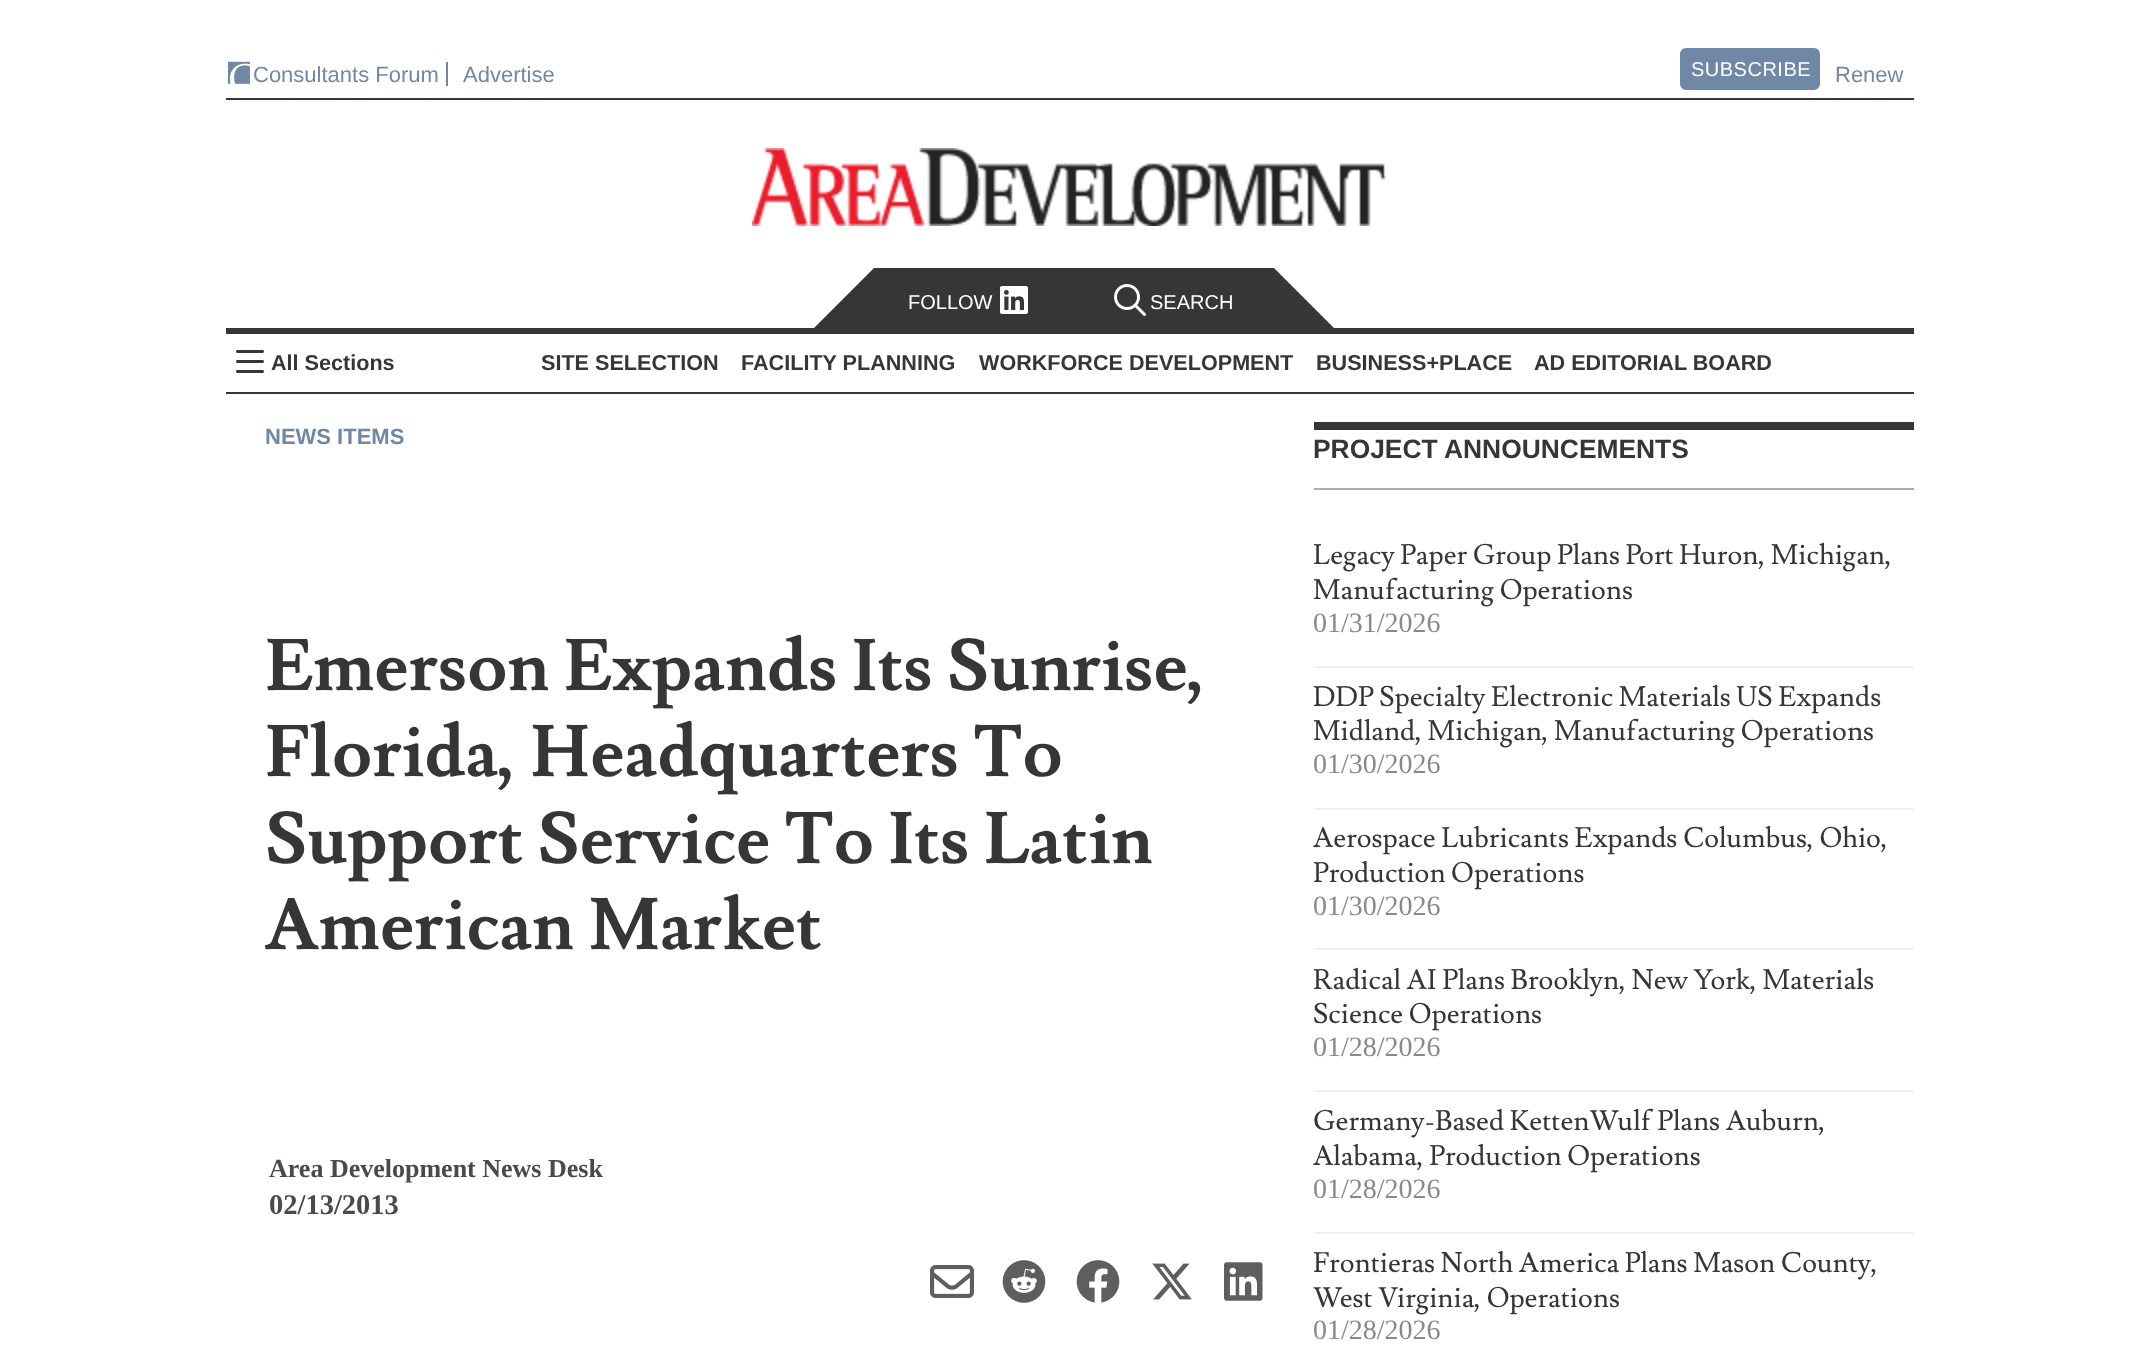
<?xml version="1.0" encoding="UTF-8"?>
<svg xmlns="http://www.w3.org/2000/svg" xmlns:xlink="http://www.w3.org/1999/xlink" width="2138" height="1364">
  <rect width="100%" height="100%" fill="#ffffff" />
  <rect x="446" y="62" width="2" height="24" fill="#6e88a6" />
  <image x="228" y="61" width="22" height="23" xlink:href="image1.png" />
  <rect x="1681" y="49" width="138" height="40" rx="5" fill="#6e88a6" stroke="#6e88a6" stroke-width="2" />
  <rect x="226" y="98" width="1688" height="2" fill="#363636" />
  <rect x="226" y="328" width="1688" height="6" fill="#363636" />
  <image x="752" y="148" width="634" height="78" xlink:href="image2.png" />
  <rect x="226" y="392" width="1688" height="2" fill="#363636" />
  <path d="M 1334 328 h -520 l 60 -60 h 400 z" fill="#363636" />
  <image x="1000" y="286" width="28" height="28" xlink:href="image3.png" />
  <image x="1114" y="284" width="32" height="32" xlink:href="image4.png" />
  <image x="236" y="350" width="28" height="23" xlink:href="image5.png" />
  <image x="930" y="1265" width="44" height="33" xlink:href="image6.png" />
  <image x="1002" y="1260" width="44" height="43" xlink:href="image7.png" />
  <image x="1076" y="1260" width="44" height="43" xlink:href="image8.png" />
  <image x="1152" y="1263" width="40" height="37" xlink:href="image9.png" />
  <image x="1224" y="1262" width="39" height="39" xlink:href="image10.png" />
  <rect x="1314" y="422" width="600" height="8" fill="#363636" />
  <rect x="1314" y="488" width="600" height="2" fill="#ababab" />
  <rect x="1314" y="666" width="600" height="2" fill="#efefef" />
  <rect x="1314" y="808" width="600" height="2" fill="#efefef" />
  <rect x="1314" y="948" width="600" height="2" fill="#efefef" />
  <rect x="1314" y="1090" width="600" height="2" fill="#efefef" />
  <rect x="1314" y="1232" width="600" height="2" fill="#efefef" />
  <text x="253" y="82" style="font-family: Liberation Sans; font-size: 22px; fill: #6e88a6">Consultants Forum</text>
  <text x="463" y="82" style="font-family: Liberation Sans; font-size: 22px; fill: #6e88a6">Advertise</text>
  <text x="1691" y="76" style="font-family: Liberation Sans; font-size: 20px; letter-spacing: 0.5px; fill: #ffffff">SUBSCRIBE</text>
  <text x="1835" y="82" style="font-family: Liberation Sans; font-size: 22px; fill: #6e88a6">Renew</text>
  <text x="908" y="309" style="font-family: Liberation Sans; font-size: 20px; fill: #ffffff">FOLLOW</text>
  <text x="1150" y="309" style="font-family: Liberation Sans; font-size: 20px; fill: #ffffff">SEARCH</text>
  <text x="271" y="370" style="font-family: Liberation Sans; font-size: 21.6px; font-weight: bold; fill: #363636">All Sections</text>
  <text x="541" y="370" style="font-family: Liberation Sans; font-size: 21.6px; font-weight: bold; fill: #363636">SITE SELECTION</text>
  <text x="741" y="370" style="font-family: Liberation Sans; font-size: 21.6px; font-weight: bold; fill: #363636">FACILITY PLANNING</text>
  <text x="979" y="370" style="font-family: Liberation Sans; font-size: 21.6px; font-weight: bold; fill: #363636">WORKFORCE DEVELOPMENT</text>
  <text x="1316" y="370" style="font-family: Liberation Sans; font-size: 21.6px; font-weight: bold; fill: #363636">BUSINESS+PLACE</text>
  <text x="1534" y="370" style="font-family: Liberation Sans; font-size: 21.6px; font-weight: bold; fill: #363636">AD EDITORIAL BOARD</text>
  <text x="265" y="444" style="font-family: Liberation Sans; font-size: 22px; font-weight: bold; fill: #6e88a6">NEWS ITEMS</text>
  <text x="265" y="690" style="font-family: Lusitana; font-size: 72px; font-weight: bold; fill: #363636">Emerson Expands Its Sunrise,</text>
  <text x="265" y="776" style="font-family: Lusitana; font-size: 72px; font-weight: bold; fill: #363636">Florida, Headquarters To</text>
  <text x="265" y="863" style="font-family: Lusitana; font-size: 72px; font-weight: bold; fill: #363636">Support Service To Its Latin</text>
  <text x="265" y="949" style="font-family: Lusitana; font-size: 72px; font-weight: bold; fill: #363636">American Market</text>
  <text x="269" y="1177" style="font-family: Liberation Serif; font-size: 26px; font-weight: bold; fill: #4a4a4a">Area Development News Desk</text>
  <text x="269" y="1214" style="font-family: Liberation Serif; font-size: 28.5px; font-weight: bold; fill: #4a4a4a">02/13/2013</text>
  <text x="1313" y="458" style="font-family: Liberation Sans; font-size: 26.4px; font-weight: bold; fill: #363636">PROJECT ANNOUNCEMENTS</text>
  <text x="1313" y="564" style="font-family: Lusitana; font-size: 28px; fill: #363636">Legacy Paper Group Plans Port Huron, Michigan,</text>
  <text x="1313" y="599" style="font-family: Lusitana; font-size: 28px; fill: #363636">Manufacturing Operations</text>
  <text x="1313" y="632" style="font-family: Liberation Serif; font-size: 28px; fill: #898989">01/31/2026</text>
  <text x="1313" y="706" style="font-family: Lusitana; font-size: 28px; fill: #363636">DDP Specialty Electronic Materials US Expands</text>
  <text x="1313" y="740" style="font-family: Lusitana; font-size: 28px; fill: #363636">Midland, Michigan, Manufacturing Operations</text>
  <text x="1313" y="773" style="font-family: Liberation Serif; font-size: 28px; fill: #898989">01/30/2026</text>
  <text x="1313" y="847" style="font-family: Lusitana; font-size: 28px; fill: #363636">Aerospace Lubricants Expands Columbus, Ohio,</text>
  <text x="1313" y="882" style="font-family: Lusitana; font-size: 28px; fill: #363636">Production Operations</text>
  <text x="1313" y="915" style="font-family: Liberation Serif; font-size: 28px; fill: #898989">01/30/2026</text>
  <text x="1313" y="989" style="font-family: Lusitana; font-size: 28px; fill: #363636">Radical AI Plans Brooklyn, New York, Materials</text>
  <text x="1313" y="1023" style="font-family: Lusitana; font-size: 28px; fill: #363636">Science Operations</text>
  <text x="1313" y="1056" style="font-family: Liberation Serif; font-size: 28px; fill: #898989">01/28/2026</text>
  <text x="1313" y="1130" style="font-family: Lusitana; font-size: 28px; fill: #363636">Germany-Based KettenWulf Plans Auburn,</text>
  <text x="1313" y="1165" style="font-family: Lusitana; font-size: 28px; fill: #363636">Alabama, Production Operations</text>
  <text x="1313" y="1198" style="font-family: Liberation Serif; font-size: 28px; fill: #898989">01/28/2026</text>
  <text x="1313" y="1272" style="font-family: Lusitana; font-size: 28px; fill: #363636">Frontieras North America Plans Mason County,</text>
  <text x="1313" y="1307" style="font-family: Lusitana; font-size: 28px; fill: #363636">West Virginia, Operations</text>
  <text x="1313" y="1339" style="font-family: Liberation Serif; font-size: 28px; fill: #898989">01/28/2026</text>
</svg>
